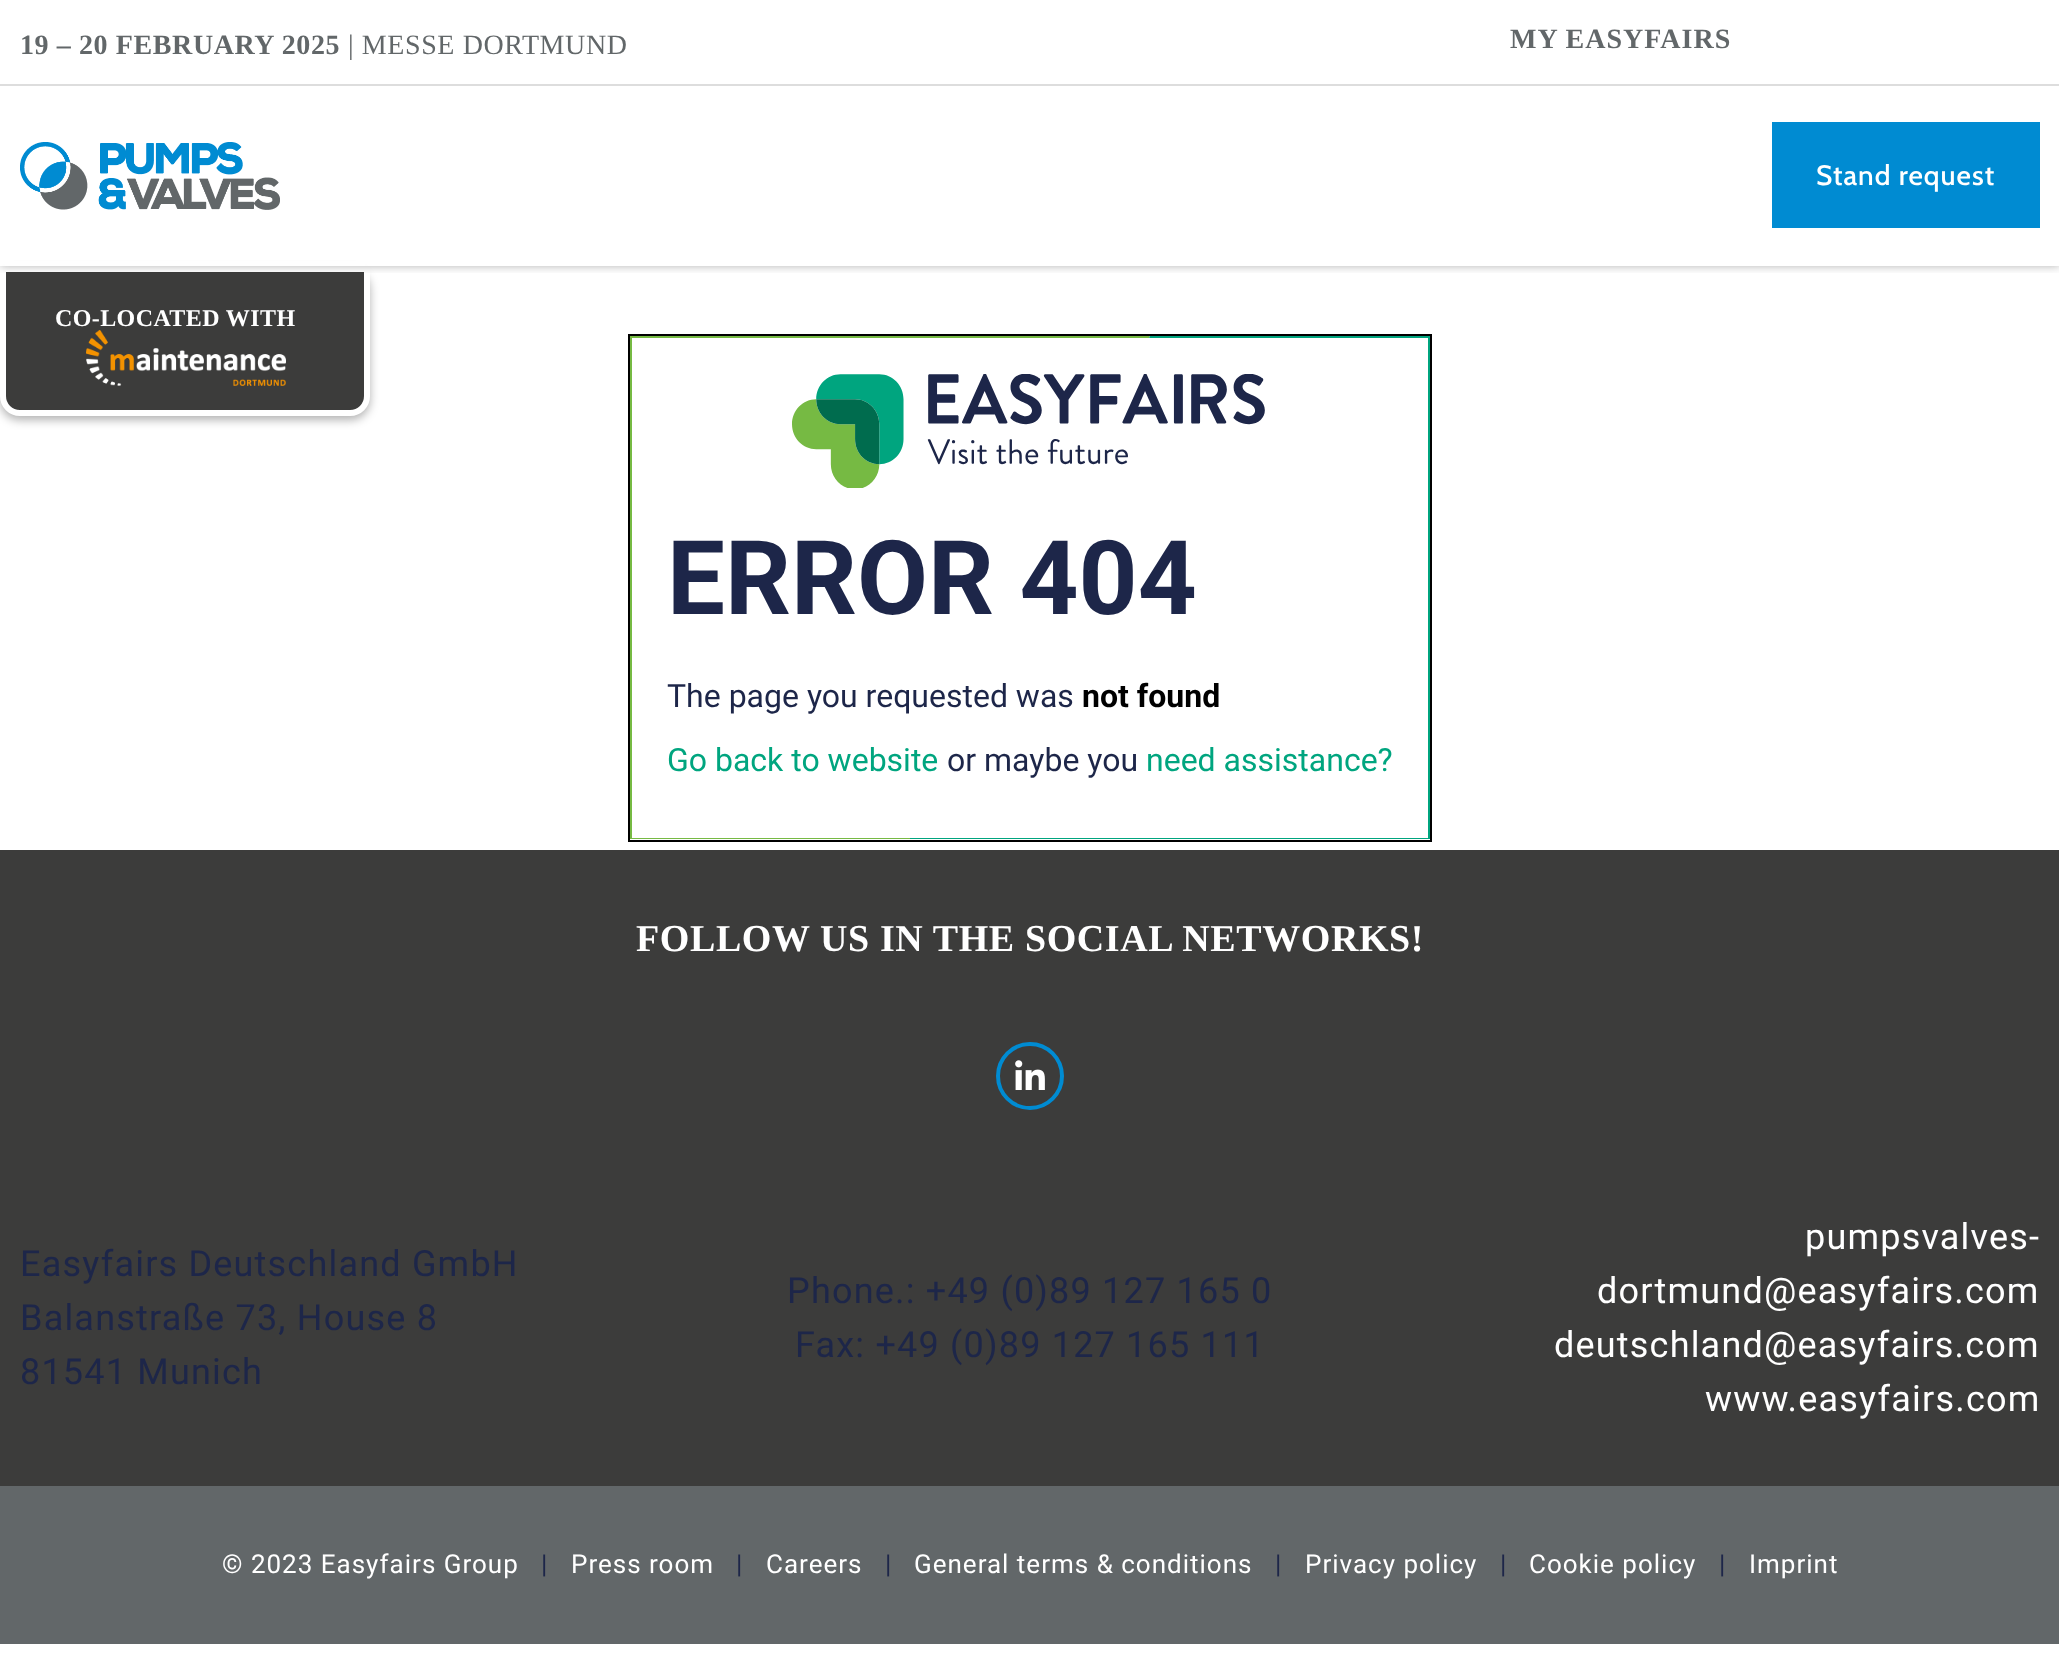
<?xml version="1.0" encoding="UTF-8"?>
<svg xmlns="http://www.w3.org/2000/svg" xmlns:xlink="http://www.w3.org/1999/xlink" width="2059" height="1659">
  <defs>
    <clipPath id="clip1"><rect x="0" y="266" width="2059" height="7" /></clipPath>
  </defs>
  <rect width="100%" height="100%" fill="#ffffff" />
  <rect y="270" width="370" height="150" rx="20" fill="#000000" fill-opacity="0.3" filter="blur(5px)" />
  <rect x="5" y="261" width="360" height="5" fill="#ffffff" />
  <path d="M 3 269 h 364 v 127 c 0 9.5 -7.5 17 -17 17 h -330 c -9.5 0 -17 -7.5 -17 -17 z" fill="#3c3c3b" stroke="#ffffff" stroke-width="6" />
  <g clip-path="url(#clip1)">
    <rect y="84" width="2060" height="182" fill="#000000" fill-opacity="0.3" filter="blur(5px)" />
  </g>
  <rect y="75" width="2059" height="9" fill="#ffffff" />
  <rect y="84" width="2059" height="2" fill="#dddddd" />
  <image x="20" y="142" width="260" height="68" xlink:href="image1.png" />
  <rect x="1772" y="122" width="268" height="106" fill="#008bd2" />
  <image x="86" y="330" width="200" height="56" xlink:href="image2.png" />
  <image x="792" y="374" width="473" height="114" xlink:href="image3.png" />
  <rect x="629" y="335" width="802" height="506" fill="none" stroke="#000000" stroke-width="2" />
  <path d="M 630 336 v 503 h 280 v -1 h -278 v -500 h 517 l 1 -2 z" fill="#76ba43" />
  <path d="M 1430 839 v -503 h -280 l -1 2 h 279 v 500 h -518 v 1 z" fill="#00a57f" />
  <rect y="850" width="2059" height="636" fill="#3c3c3b" />
  <circle cx="1030" cy="1076" r="32" fill="none" stroke="#008bd2" stroke-width="4" />
  <image x="1015" y="1060" width="30" height="30" xlink:href="image4.png" />
  <rect y="1486" width="2059" height="158" fill="#626769" />
  <text x="20" y="54" style="font-family: Liberation Serif; font-size: 28px; font-weight: bold; letter-spacing: 0.6px; fill: #626769">19 – 20 FEBRUARY 2025</text>
  <text x="348" y="54" style="font-family: Liberation Serif; font-size: 28px; letter-spacing: 0.6px; fill: #626769">| MESSE DORTMUND</text>
  <text x="1510" y="48" style="font-family: Liberation Serif; font-size: 28px; font-weight: bold; letter-spacing: 1px; fill: #626769">MY EASYFAIRS</text>
  <text x="1816" y="185" style="font-family: Cabin; font-size: 28px; font-weight: 500; letter-spacing: 1px; fill: #ffffff">Stand request</text>
  <text x="55" y="326" style="font-family: Liberation Serif; font-size: 24px; font-weight: bold; letter-spacing: 0.4px; fill: #ffffff">CO-LOCATED WITH</text>
  <text x="667" y="614" style="font-family: Roboto; font-size: 103px; font-weight: bold; fill: #1d2649">ERROR 404</text>
  <text x="667" y="707" style="font-family: Roboto; font-size: 32px; fill: #1d2649">The page you requested was</text>
  <text x="1082" y="707" style="font-family: Roboto; font-size: 32px; font-weight: bold; fill: #000000">not found</text>
  <text x="667" y="771" style="font-family: Roboto; font-size: 32px; fill: #00a57f">Go back to website</text>
  <text x="947" y="771" style="font-family: Roboto; font-size: 32px; fill: #1d2649">or maybe you</text>
  <text x="1146" y="771" style="font-family: Roboto; font-size: 32px; fill: #00a57f">need assistance?</text>
  <text x="636" y="951" style="font-family: Liberation Serif; font-size: 38px; font-weight: bold; letter-spacing: 0.6px; fill: #ffffff">FOLLOW US IN THE SOCIAL NETWORKS!</text>
  <text x="20" y="1276" style="font-family: Roboto; font-size: 36px; letter-spacing: 1.2px; fill: #1d2649">Easyfairs Deutschland GmbH</text>
  <text x="20" y="1330" style="font-family: Roboto; font-size: 36px; letter-spacing: 1.2px; fill: #1d2649">Balanstraße 73, House 8</text>
  <text x="20" y="1384" style="font-family: Roboto; font-size: 36px; letter-spacing: 1.2px; fill: #1d2649">81541 Munich</text>
  <text x="787" y="1303" style="font-family: Roboto; font-size: 36px; letter-spacing: 1.2px; fill: #1d2649">Phone.: +49 (0)89 127 165 0</text>
  <text x="795" y="1357" style="font-family: Roboto; font-size: 36px; letter-spacing: 1.2px; fill: #1d2649">Fax: +49 (0)89 127 165 111</text>
  <text x="1805" y="1249" style="font-family: Roboto; font-size: 36px; letter-spacing: 1.2px; fill: #ffffff">pumpsvalves-</text>
  <text x="1597" y="1303" style="font-family: Roboto; font-size: 36px; letter-spacing: 1.2px; fill: #ffffff">dortmund@easyfairs.com</text>
  <text x="1554" y="1357" style="font-family: Roboto; font-size: 36px; letter-spacing: 1.2px; fill: #ffffff">deutschland@easyfairs.com</text>
  <text x="1705" y="1411" style="font-family: Roboto; font-size: 36px; letter-spacing: 1.2px; fill: #ffffff">www.easyfairs.com</text>
  <text x="222" y="1573" style="font-family: Roboto; font-size: 26px; letter-spacing: 1px; fill: #ffffff">© 2023 Easyfairs Group</text>
  <text x="541" y="1573" style="font-family: Roboto; font-size: 26px; letter-spacing: 1px; fill: #1d2649">|</text>
  <text x="571" y="1573" style="font-family: Roboto; font-size: 26px; letter-spacing: 1px; fill: #ffffff">Press room</text>
  <text x="736" y="1573" style="font-family: Roboto; font-size: 26px; letter-spacing: 1px; fill: #1d2649">|</text>
  <text x="766" y="1573" style="font-family: Roboto; font-size: 26px; letter-spacing: 1px; fill: #ffffff">Careers</text>
  <text x="885" y="1573" style="font-family: Roboto; font-size: 26px; letter-spacing: 1px; fill: #1d2649">|</text>
  <text x="914" y="1573" style="font-family: Roboto; font-size: 26px; letter-spacing: 1px; fill: #ffffff">General terms &amp; conditions</text>
  <text x="1275" y="1573" style="font-family: Roboto; font-size: 26px; letter-spacing: 1px; fill: #1d2649">|</text>
  <text x="1305" y="1573" style="font-family: Roboto; font-size: 26px; letter-spacing: 1px; fill: #ffffff">Privacy policy</text>
  <text x="1500" y="1573" style="font-family: Roboto; font-size: 26px; letter-spacing: 1px; fill: #1d2649">|</text>
  <text x="1529" y="1573" style="font-family: Roboto; font-size: 26px; letter-spacing: 1px; fill: #ffffff">Cookie policy</text>
  <text x="1719" y="1573" style="font-family: Roboto; font-size: 26px; letter-spacing: 1px; fill: #1d2649">|</text>
  <text x="1749" y="1573" style="font-family: Roboto; font-size: 26px; letter-spacing: 1px; fill: #ffffff">Imprint</text>
</svg>
